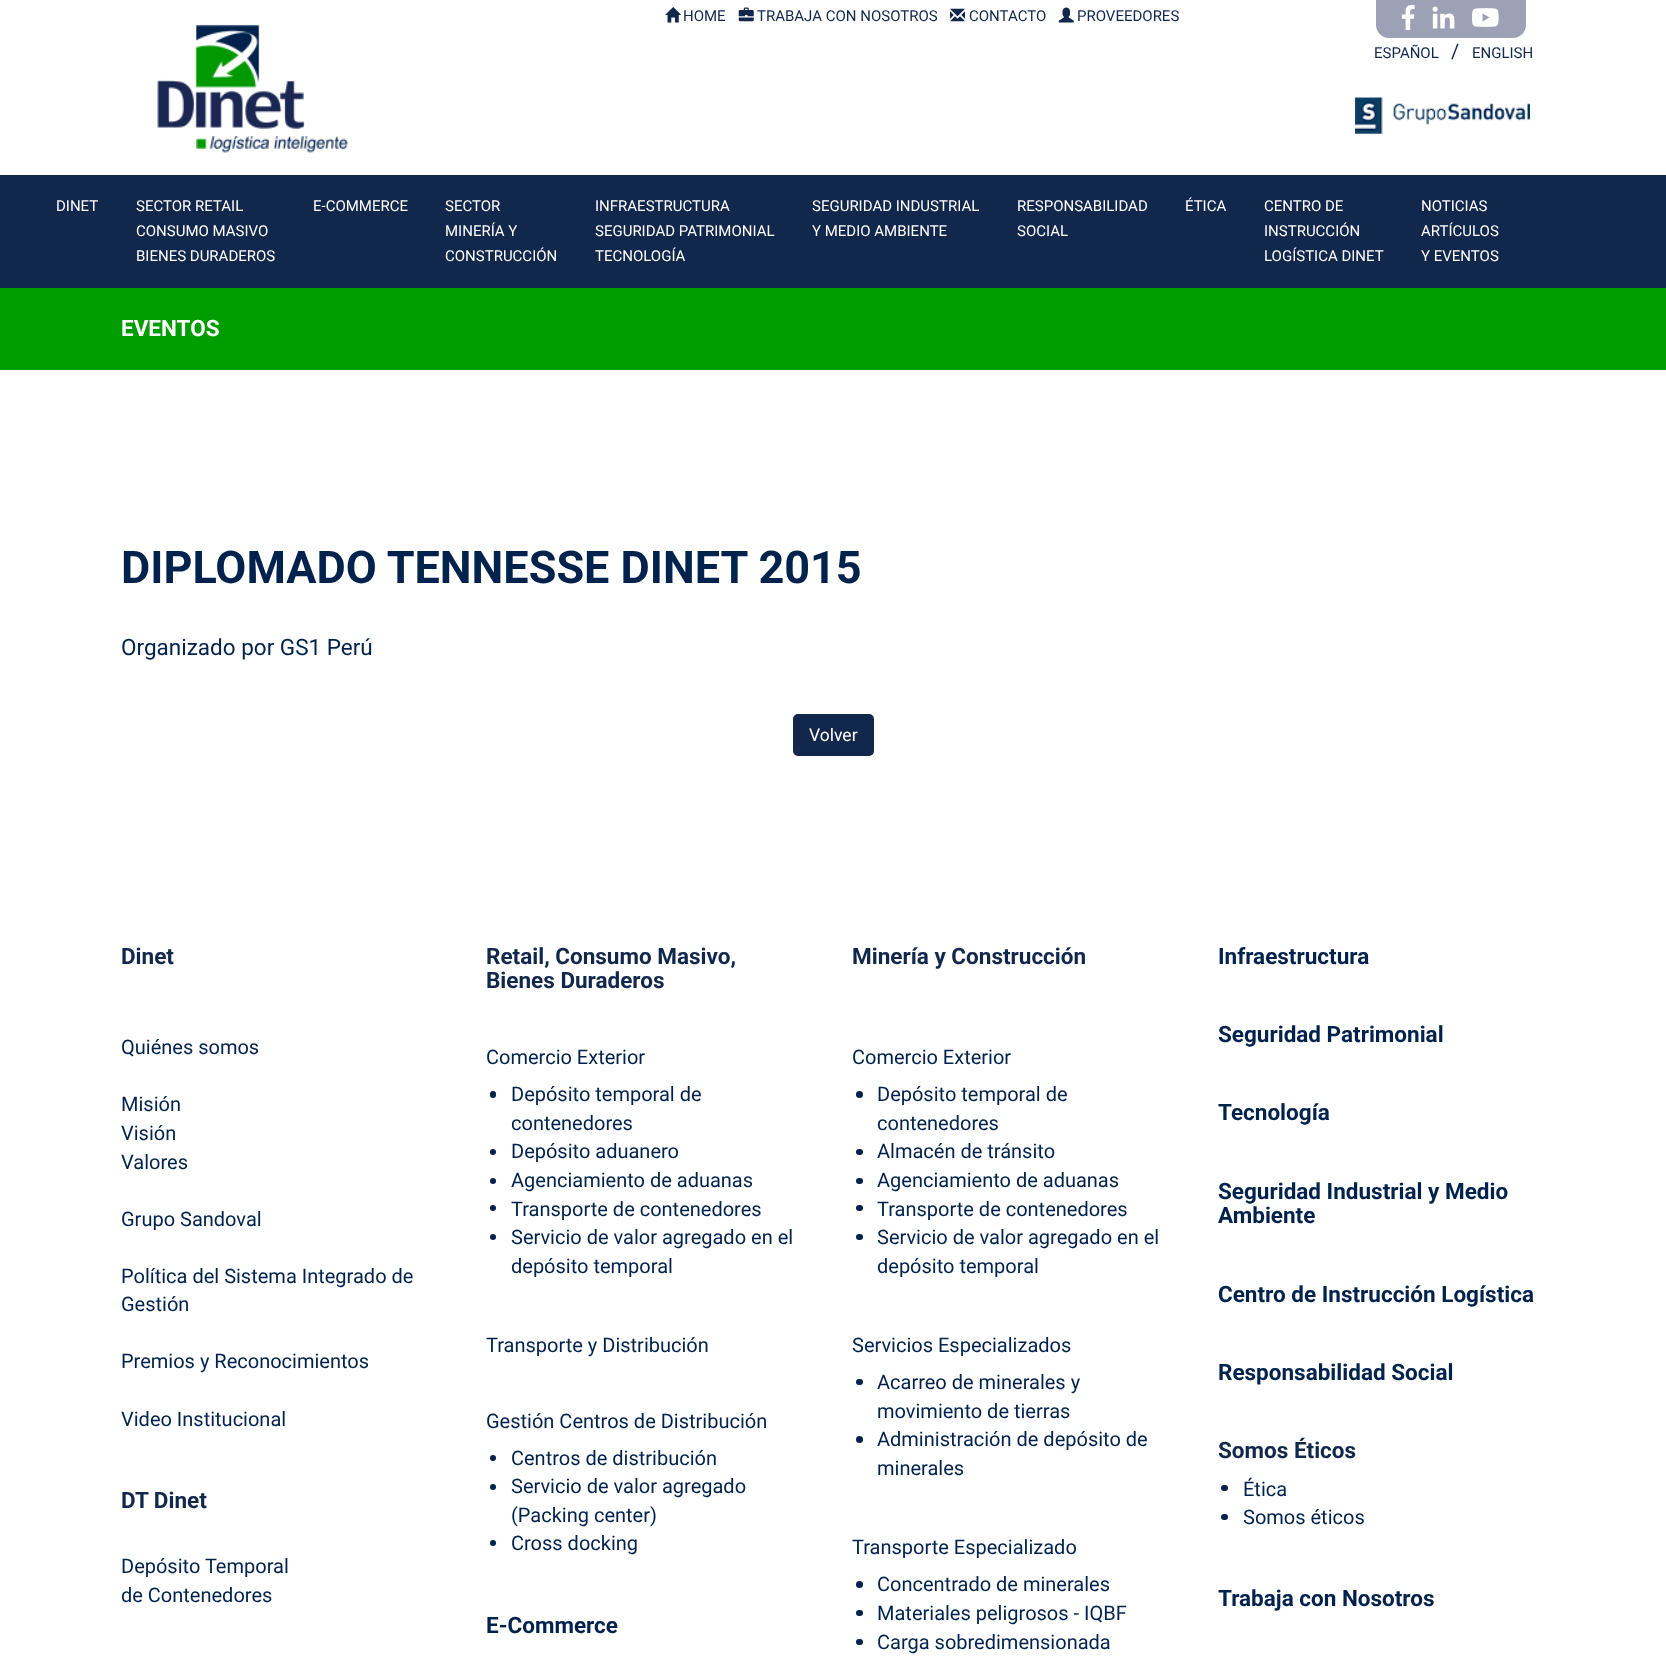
<?xml version="1.0" encoding="UTF-8"?>
<svg xmlns="http://www.w3.org/2000/svg" xmlns:xlink="http://www.w3.org/1999/xlink" width="1666" height="1659">
  <rect width="100%" height="100%" fill="#ffffff" />
  <image x="157" y="24" width="191" height="129" xlink:href="image1.png" />
  <image x="665" y="7" width="16" height="16" xlink:href="image2.png" />
  <image x="738" y="7" width="16" height="15" xlink:href="image3.png" />
  <image x="950" y="8" width="15" height="14" xlink:href="image4.png" />
  <image x="1058" y="7" width="16" height="16" xlink:href="image5.png" />
  <path d="M 1376 0 h 150 v 25 c 0 7 -6 13 -13 13 h -124 c -7 0 -13 -6 -13 -13 z" fill="#9ca1b6" />
  <image x="1401" y="5" width="14" height="25" xlink:href="image6.png" />
  <image x="1432" y="6" width="23" height="23" xlink:href="image7.png" />
  <image x="1472" y="8" width="27" height="19" xlink:href="image8.png" />
  <image x="1355" y="97" width="175" height="37" xlink:href="image9.png" />
  <rect y="175" width="1666" height="113" fill="#11274c" />
  <rect y="288" width="1666" height="82" fill="#009d00" />
  <rect x="793" y="714" width="81" height="42" rx="5" fill="#11274c" />
  <rect x="490" y="1091" width="6" height="7" rx="3" fill="#00224c" />
  <circle cx="493" cy="1152" r="3" fill="#00224c" />
  <circle cx="493" cy="1181" r="3" fill="#00224c" />
  <circle cx="493" cy="1208" r="3" fill="#00224c" />
  <circle cx="493" cy="1237" r="3" fill="#00224c" />
  <circle cx="493" cy="1458" r="3" fill="#00224c" />
  <circle cx="493" cy="1487" r="3" fill="#00224c" />
  <circle cx="493" cy="1543" r="3" fill="#00224c" />
  <circle cx="859.5" cy="1094.5" r="3.5" fill="#00224c" />
  <rect x="856" y="1149" width="7" height="6" rx="3" fill="#00224c" />
  <rect x="856" y="1178" width="7" height="6" rx="3" fill="#00224c" />
  <rect x="856" y="1205" width="7" height="6" rx="3" fill="#00224c" />
  <rect x="856" y="1234" width="7" height="6" rx="3" fill="#00224c" />
  <rect x="856" y="1379" width="7" height="6" rx="3" fill="#00224c" />
  <circle cx="859.5" cy="1439.5" r="3.5" fill="#00224c" />
  <circle cx="859.5" cy="1584.5" r="3.5" fill="#00224c" />
  <rect x="856" y="1610" width="7" height="6" rx="3" fill="#00224c" />
  <rect x="856" y="1639" width="7" height="6" rx="3" fill="#00224c" />
  <rect x="1221" y="1485" width="7" height="6" rx="3" fill="#00224c" />
  <rect x="1221" y="1514" width="7" height="6" rx="3" fill="#00224c" />
  <text x="683" y="21" style="font-family: Roboto; font-size: 15px; fill: #11274c">HOME</text>
  <text x="757" y="21" style="font-family: Roboto; font-size: 15px; fill: #11274c">TRABAJA CON NOSOTROS</text>
  <text x="969" y="21" style="font-family: Roboto; font-size: 15px; fill: #11274c">CONTACTO</text>
  <text x="1077" y="21" style="font-family: Roboto; font-size: 15px; fill: #11274c">PROVEEDORES</text>
  <text x="1374" y="58" style="font-family: Roboto; font-size: 15px; fill: #11274c">ESPAÑOL</text>
  <text x="1451" y="58" style="font-family: Roboto; font-size: 20px; fill: #11274c">/</text>
  <text x="1472" y="58" style="font-family: Roboto; font-size: 15px; fill: #11274c">ENGLISH</text>
  <text x="56" y="211" style="font-family: Roboto; font-size: 15px; fill: #ffffff">DINET</text>
  <text x="136" y="211" style="font-family: Roboto; font-size: 15px; fill: #ffffff">SECTOR RETAIL</text>
  <text x="136" y="236" style="font-family: Roboto; font-size: 15px; fill: #ffffff">CONSUMO MASIVO</text>
  <text x="136" y="261" style="font-family: Roboto; font-size: 15px; fill: #ffffff">BIENES DURADEROS</text>
  <text x="313" y="211" style="font-family: Roboto; font-size: 15px; fill: #ffffff">E-COMMERCE</text>
  <text x="445" y="211" style="font-family: Roboto; font-size: 15px; fill: #ffffff">SECTOR</text>
  <text x="445" y="236" style="font-family: Roboto; font-size: 15px; fill: #ffffff">MINERÍA Y</text>
  <text x="445" y="261" style="font-family: Roboto; font-size: 15px; fill: #ffffff">CONSTRUCCIÓN</text>
  <text x="595" y="211" style="font-family: Roboto; font-size: 15px; fill: #ffffff">INFRAESTRUCTURA</text>
  <text x="595" y="236" style="font-family: Roboto; font-size: 15px; fill: #ffffff">SEGURIDAD PATRIMONIAL</text>
  <text x="595" y="261" style="font-family: Roboto; font-size: 15px; fill: #ffffff">TECNOLOGÍA</text>
  <text x="812" y="211" style="font-family: Roboto; font-size: 15px; fill: #ffffff">SEGURIDAD INDUSTRIAL</text>
  <text x="812" y="236" style="font-family: Roboto; font-size: 15px; fill: #ffffff">Y MEDIO AMBIENTE</text>
  <text x="1017" y="211" style="font-family: Roboto; font-size: 15px; fill: #ffffff">RESPONSABILIDAD</text>
  <text x="1017" y="236" style="font-family: Roboto; font-size: 15px; fill: #ffffff">SOCIAL</text>
  <text x="1185" y="211" style="font-family: Roboto; font-size: 15px; fill: #ffffff">ÉTICA</text>
  <text x="1264" y="211" style="font-family: Roboto; font-size: 15px; fill: #ffffff">CENTRO DE</text>
  <text x="1264" y="236" style="font-family: Roboto; font-size: 15px; fill: #ffffff">INSTRUCCIÓN</text>
  <text x="1264" y="261" style="font-family: Roboto; font-size: 15px; fill: #ffffff">LOGÍSTICA DINET</text>
  <text x="1421" y="211" style="font-family: Roboto; font-size: 15px; fill: #ffffff">NOTICIAS</text>
  <text x="1421" y="236" style="font-family: Roboto; font-size: 15px; fill: #ffffff">ARTÍCULOS</text>
  <text x="1421" y="261" style="font-family: Roboto; font-size: 15px; fill: #ffffff">Y EVENTOS</text>
  <text x="121" y="336" style="font-family: Roboto; font-size: 22.5px; font-weight: bold; fill: #ffffff">EVENTOS</text>
  <text x="121" y="583" style="font-family: Roboto; font-size: 45px; font-weight: bold; fill: #00224c">DIPLOMADO TENNESSE DINET 2015</text>
  <text x="121" y="655" style="font-family: Roboto; font-size: 22.5px; fill: #00224c">Organizado por GS1 Perú</text>
  <text x="809" y="741" style="font-family: Roboto; font-size: 17.5px; fill: #ffffff">Volver</text>
  <text x="121" y="964" style="font-family: Roboto; font-size: 22.5px; font-weight: bold; fill: #11274c">Dinet</text>
  <text x="121" y="1054" style="font-family: Roboto; font-size: 20px; fill: #00224c">Quiénes somos</text>
  <text x="121" y="1111" style="font-family: Roboto; font-size: 20px; fill: #00224c">Misión</text>
  <text x="121" y="1140" style="font-family: Roboto; font-size: 20px; fill: #00224c">Visión</text>
  <text x="121" y="1169" style="font-family: Roboto; font-size: 20px; fill: #00224c">Valores</text>
  <text x="121" y="1226" style="font-family: Roboto; font-size: 20px; fill: #00224c">Grupo Sandoval</text>
  <text x="121" y="1283" style="font-family: Roboto; font-size: 20px; fill: #00224c">Política del Sistema Integrado de</text>
  <text x="121" y="1311" style="font-family: Roboto; font-size: 20px; fill: #00224c">Gestión</text>
  <text x="121" y="1368" style="font-family: Roboto; font-size: 20px; fill: #00224c">Premios y Reconocimientos</text>
  <text x="121" y="1426" style="font-family: Roboto; font-size: 20px; fill: #00224c">Video Institucional</text>
  <text x="121" y="1508" style="font-family: Roboto; font-size: 22.5px; font-weight: bold; fill: #11274c">DT Dinet</text>
  <text x="121" y="1573" style="font-family: Roboto; font-size: 20px; fill: #00224c">Depósito Temporal</text>
  <text x="121" y="1602" style="font-family: Roboto; font-size: 20px; fill: #00224c">de Contenedores</text>
  <text x="486" y="964" style="font-family: Roboto; font-size: 22.5px; font-weight: bold; fill: #11274c">Retail, Consumo Masivo,</text>
  <text x="486" y="988" style="font-family: Roboto; font-size: 22.5px; font-weight: bold; fill: #11274c">Bienes Duraderos</text>
  <text x="486" y="1064" style="font-family: Roboto; font-size: 20px; fill: #00224c">Comercio Exterior</text>
  <text x="511" y="1101" style="font-family: Roboto; font-size: 20px; fill: #00224c">Depósito temporal de</text>
  <text x="511" y="1130" style="font-family: Roboto; font-size: 20px; fill: #00224c">contenedores</text>
  <text x="511" y="1158" style="font-family: Roboto; font-size: 20px; fill: #00224c">Depósito aduanero</text>
  <text x="511" y="1187" style="font-family: Roboto; font-size: 20px; fill: #00224c">Agenciamiento de aduanas</text>
  <text x="511" y="1216" style="font-family: Roboto; font-size: 20px; fill: #00224c">Transporte de contenedores</text>
  <text x="511" y="1244" style="font-family: Roboto; font-size: 20px; fill: #00224c">Servicio de valor agregado en el</text>
  <text x="511" y="1273" style="font-family: Roboto; font-size: 20px; fill: #00224c">depósito temporal</text>
  <text x="486" y="1352" style="font-family: Roboto; font-size: 20px; fill: #00224c">Transporte y Distribución</text>
  <text x="486" y="1428" style="font-family: Roboto; font-size: 20px; fill: #00224c">Gestión Centros de Distribución</text>
  <text x="511" y="1465" style="font-family: Roboto; font-size: 20px; fill: #00224c">Centros de distribución</text>
  <text x="511" y="1493" style="font-family: Roboto; font-size: 20px; fill: #00224c">Servicio de valor agregado</text>
  <text x="511" y="1522" style="font-family: Roboto; font-size: 20px; fill: #00224c">(Packing center)</text>
  <text x="511" y="1550" style="font-family: Roboto; font-size: 20px; fill: #00224c">Cross docking</text>
  <text x="486" y="1633" style="font-family: Roboto; font-size: 22.5px; font-weight: bold; fill: #00224c">E-Commerce</text>
  <text x="852" y="964" style="font-family: Roboto; font-size: 22.5px; font-weight: bold; fill: #11274c">Minería y Construcción</text>
  <text x="852" y="1064" style="font-family: Roboto; font-size: 20px; fill: #00224c">Comercio Exterior</text>
  <text x="877" y="1101" style="font-family: Roboto; font-size: 20px; fill: #00224c">Depósito temporal de</text>
  <text x="877" y="1130" style="font-family: Roboto; font-size: 20px; fill: #00224c">contenedores</text>
  <text x="877" y="1158" style="font-family: Roboto; font-size: 20px; fill: #00224c">Almacén de tránsito</text>
  <text x="877" y="1187" style="font-family: Roboto; font-size: 20px; fill: #00224c">Agenciamiento de aduanas</text>
  <text x="877" y="1216" style="font-family: Roboto; font-size: 20px; fill: #00224c">Transporte de contenedores</text>
  <text x="877" y="1244" style="font-family: Roboto; font-size: 20px; fill: #00224c">Servicio de valor agregado en el</text>
  <text x="877" y="1273" style="font-family: Roboto; font-size: 20px; fill: #00224c">depósito temporal</text>
  <text x="852" y="1352" style="font-family: Roboto; font-size: 20px; fill: #00224c">Servicios Especializados</text>
  <text x="877" y="1389" style="font-family: Roboto; font-size: 20px; fill: #00224c">Acarreo de minerales y</text>
  <text x="877" y="1418" style="font-family: Roboto; font-size: 20px; fill: #00224c">movimiento de tierras</text>
  <text x="877" y="1446" style="font-family: Roboto; font-size: 20px; fill: #00224c">Administración de depósito de</text>
  <text x="877" y="1475" style="font-family: Roboto; font-size: 20px; fill: #00224c">minerales</text>
  <text x="852" y="1554" style="font-family: Roboto; font-size: 20px; fill: #00224c">Transporte Especializado</text>
  <text x="877" y="1591" style="font-family: Roboto; font-size: 20px; fill: #00224c">Concentrado de minerales</text>
  <text x="877" y="1620" style="font-family: Roboto; font-size: 20px; fill: #00224c">Materiales peligrosos - IQBF</text>
  <text x="877" y="1649" style="font-family: Roboto; font-size: 20px; fill: #00224c">Carga sobredimensionada</text>
  <text x="1218" y="964" style="font-family: Roboto; font-size: 22.5px; font-weight: bold; fill: #00224c">Infraestructura</text>
  <text x="1218" y="1042" style="font-family: Roboto; font-size: 22.5px; font-weight: bold; fill: #00224c">Seguridad Patrimonial</text>
  <text x="1218" y="1120" style="font-family: Roboto; font-size: 22.5px; font-weight: bold; fill: #00224c">Tecnología</text>
  <text x="1218" y="1199" style="font-family: Roboto; font-size: 22.5px; font-weight: bold; fill: #00224c">Seguridad Industrial y Medio</text>
  <text x="1218" y="1223" style="font-family: Roboto; font-size: 22.5px; font-weight: bold; fill: #00224c">Ambiente</text>
  <text x="1218" y="1302" style="font-family: Roboto; font-size: 22.5px; font-weight: bold; fill: #00224c">Centro de Instrucción Logística</text>
  <text x="1218" y="1380" style="font-family: Roboto; font-size: 22.5px; font-weight: bold; fill: #00224c">Responsabilidad Social</text>
  <text x="1218" y="1458" style="font-family: Roboto; font-size: 22.5px; font-weight: bold; fill: #11274c">Somos Éticos</text>
  <text x="1243" y="1496" style="font-family: Roboto; font-size: 20px; fill: #00224c">Ética</text>
  <text x="1243" y="1524" style="font-family: Roboto; font-size: 20px; fill: #00224c">Somos éticos</text>
  <text x="1218" y="1606" style="font-family: Roboto; font-size: 22.5px; font-weight: bold; fill: #00224c">Trabaja con Nosotros</text>
</svg>
